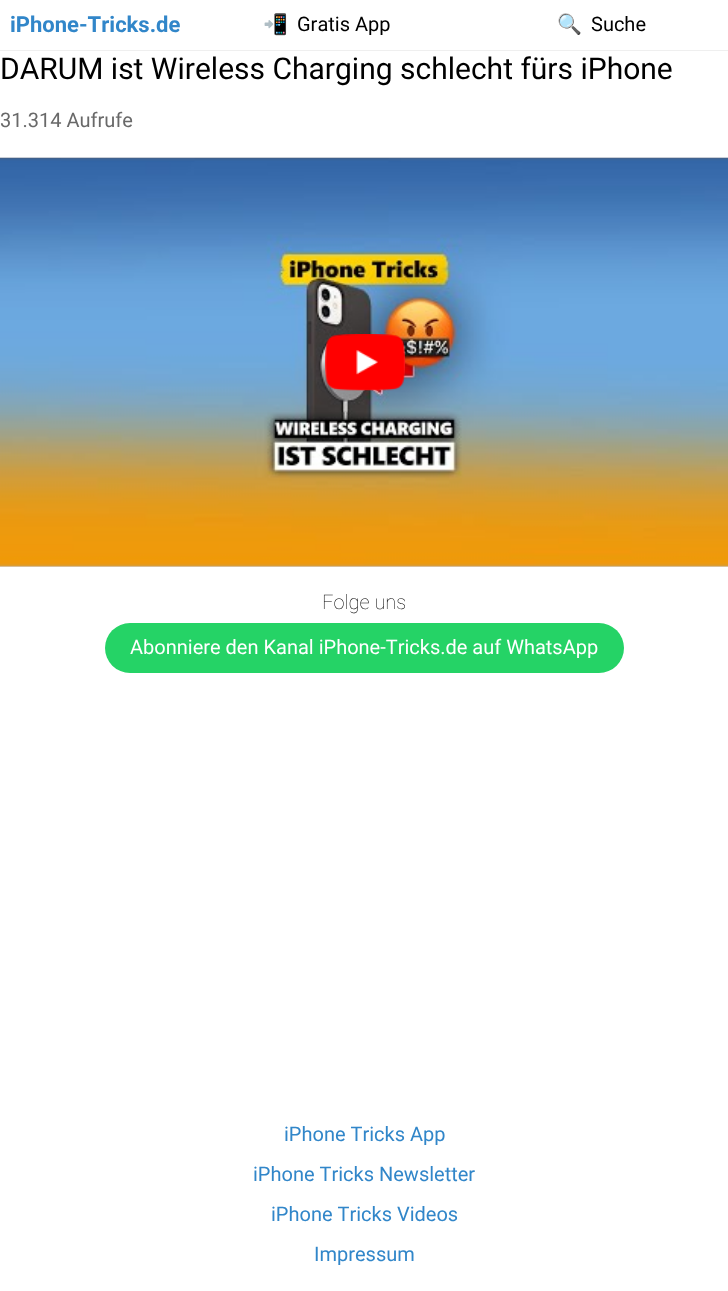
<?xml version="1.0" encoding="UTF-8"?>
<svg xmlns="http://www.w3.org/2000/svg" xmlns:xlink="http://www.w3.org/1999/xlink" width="728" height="1291">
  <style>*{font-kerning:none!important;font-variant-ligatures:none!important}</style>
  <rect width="100%" height="100%" fill="#ffffff" />
  <rect y="50" width="728" height="1" fill="#efefef" />
  <image x="0" y="157" width="728" height="410" xlink:href="image1.png" />
  <image x="325" y="334" width="80" height="57" xlink:href="image2.png" />
  <rect x="105" y="623" width="519" height="50" rx="25" fill="#25d366" />
  <text x="10" y="32" style="font-family: Roboto; font-size: 22px; font-weight: bold; fill: #3186c9">iPhone-Tricks.de</text>
  <text x="263" y="31" style="font-family: Noto Color Emoji; font-size: 20px; fill: #000000">📲</text>
  <text x="297" y="31" style="font-family: Roboto; font-size: 20px; fill: #000000">Gratis App</text>
  <text x="557" y="31" style="font-family: Noto Color Emoji; font-size: 20px; fill: #000000">🔍</text>
  <text x="591" y="31" style="font-family: Roboto; font-size: 20px; fill: #000000">Suche</text>
  <text x="0" y="79" style="font-family: Roboto; font-size: 30px; fill: #000000">DARUM ist Wireless Charging schlecht fürs iPhone</text>
  <text x="0" y="127" style="font-family: Roboto; font-size: 20px; fill: #696969">31.314 Aufrufe</text>
  <text x="322" y="609" style="font-family: Roboto; font-size: 20px; font-weight: 100; fill: #000000">Folge uns</text>
  <text x="130" y="654" style="font-family: Roboto; font-size: 20px; fill: #ffffff">Abonniere den Kanal iPhone-Tricks.de auf WhatsApp</text>
  <text x="284" y="1141" style="font-family: Roboto; font-size: 20px; fill: #3186c9">iPhone Tricks App</text>
  <text x="253" y="1181" style="font-family: Roboto; font-size: 20px; fill: #3186c9">iPhone Tricks Newsletter</text>
  <text x="271" y="1221" style="font-family: Roboto; font-size: 20px; fill: #3186c9">iPhone Tricks Videos</text>
  <text x="314" y="1261" style="font-family: Roboto; font-size: 20px; fill: #3186c9">Impressum</text>
</svg>
